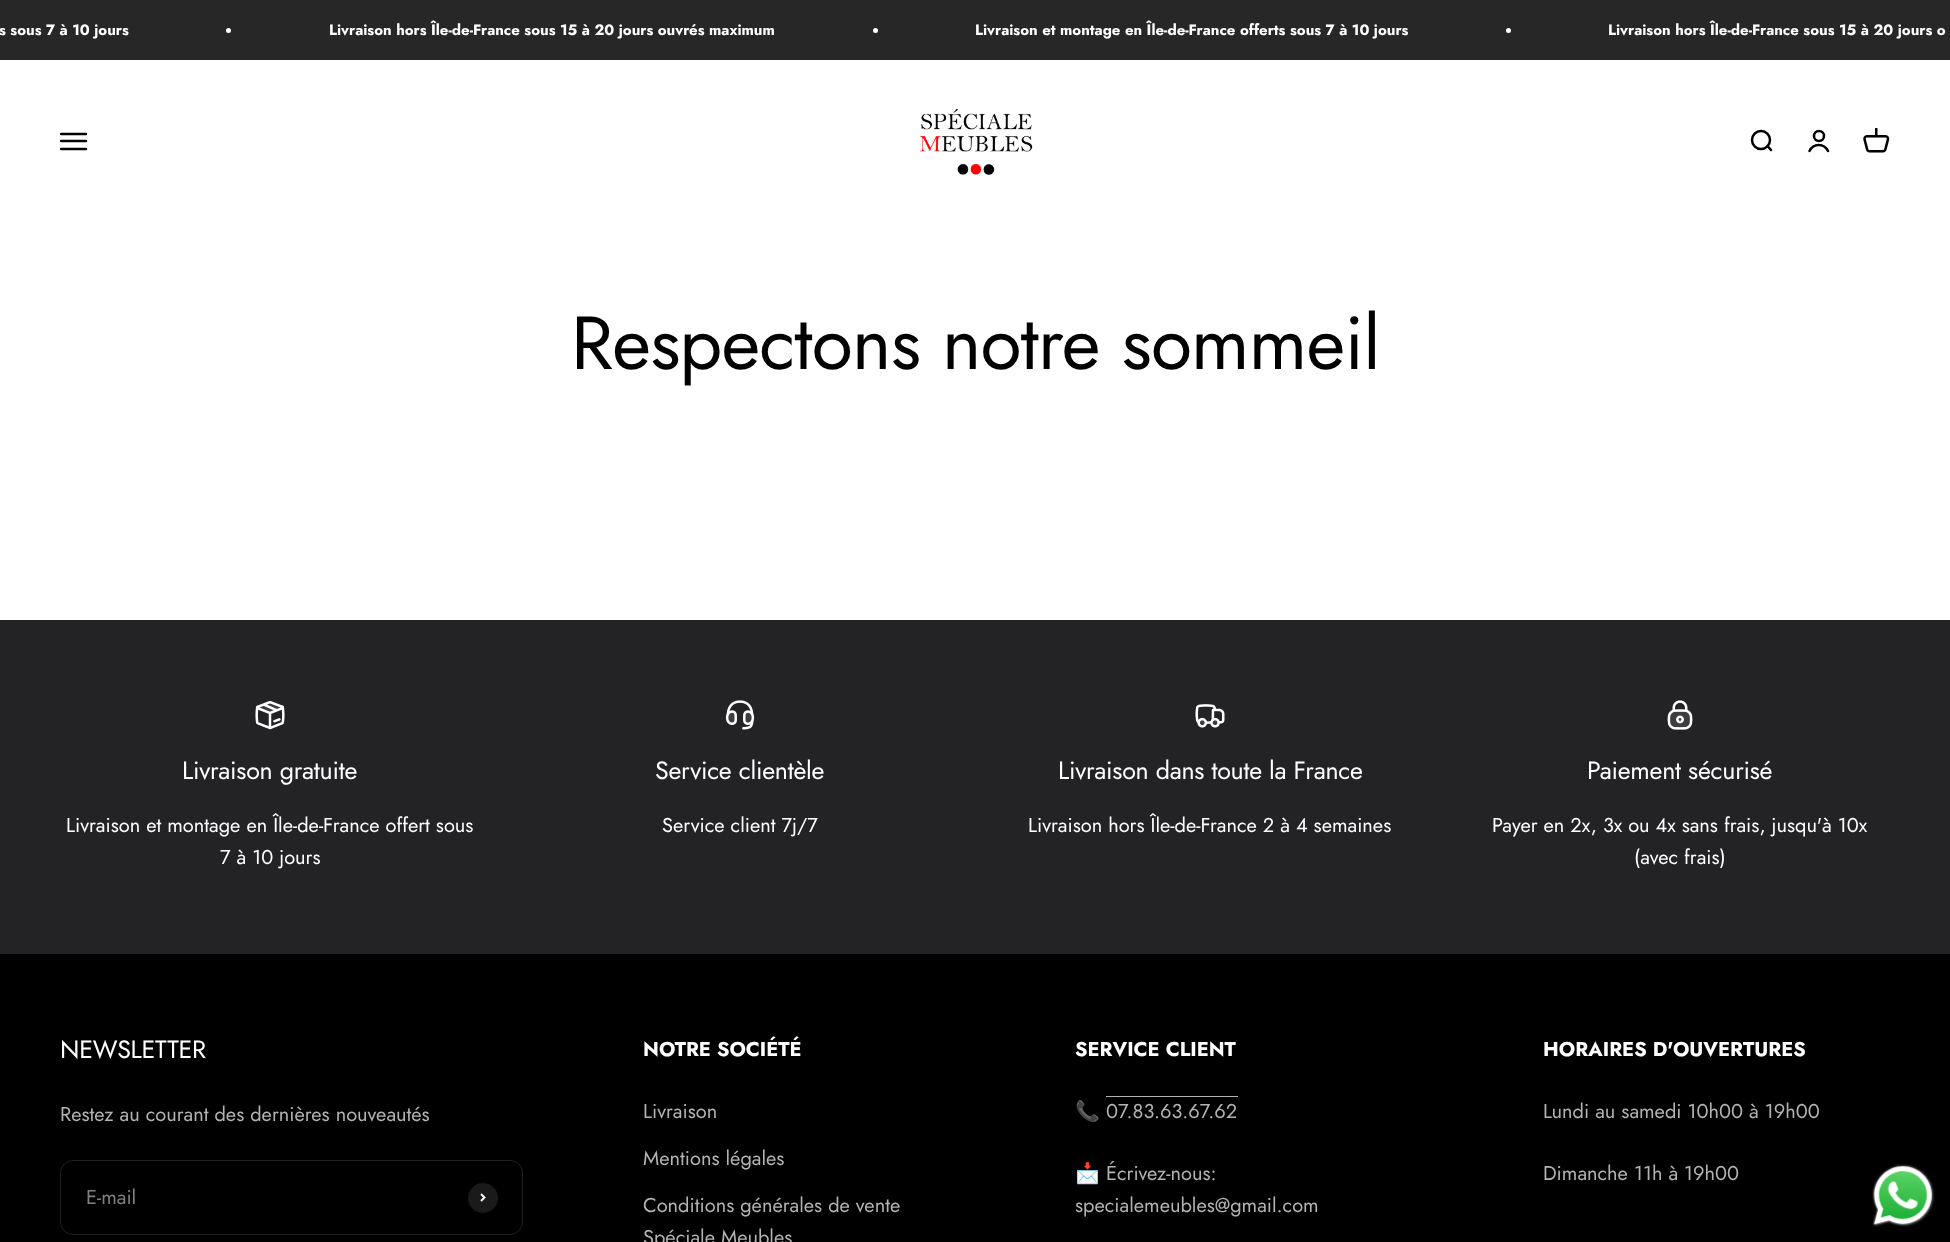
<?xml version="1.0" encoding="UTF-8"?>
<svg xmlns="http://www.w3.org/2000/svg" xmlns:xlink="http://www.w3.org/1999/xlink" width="1950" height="1242">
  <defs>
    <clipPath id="clip1"><rect x="60" y="128" width="28" height="27" /></clipPath>
  </defs>
  <rect width="100%" height="100%" fill="#ffffff" />
  <rect width="1950" height="60" fill="#272727" />
  <circle cx="228.5" cy="30.5" r="2.5" fill="#ffffff" />
  <circle cx="875.5" cy="30.5" r="2.5" fill="#ffffff" />
  <circle cx="1508.5" cy="30.5" r="2.5" fill="#ffffff" />
  <g clip-path="url(#clip1)">
    <path d="M 61 134 h 25 m -25 7 h 25 m -25 8 h 25" fill="none" stroke="#000000" stroke-width="2.5" stroke-linecap="round" />
  </g>
  <image x="919" y="108" width="114" height="67" xlink:href="image1.png" />
  <circle cx="1761" cy="140" r="9" fill="none" stroke="#000000" stroke-width="2.5" />
  <path d="M 1767.5 146 l 3.5 4" fill="none" stroke="#000000" stroke-width="2.5" stroke-linecap="round" stroke-linejoin="round" />
  <circle cx="1819" cy="136" r="5" fill="none" stroke="#000000" stroke-width="2.5" />
  <path d="M 1809.5 151 c 4 -8 14.5 -8 18.5 0" fill="none" stroke="#000000" stroke-width="2.5" stroke-linecap="round" />
  <image x="1863" y="128" width="27" height="25" xlink:href="image2.png" />
  <rect y="620" width="1950" height="334" fill="#232326" />
  <image x="255" y="701" width="30" height="29" xlink:href="image3.png" />
  <image x="725" y="700" width="30" height="30" xlink:href="image4.png" />
  <image x="1195" y="704" width="30" height="24" xlink:href="image5.png" />
  <image x="1667" y="700" width="26" height="30" xlink:href="image6.png" />
  <rect y="954" width="1950" height="288" fill="#000000" />
  <rect x="60.5" y="1160.5" width="462" height="74" rx="12.5" fill="none" stroke="#1f1f1f" />
  <circle cx="483" cy="1198" r="15" fill="#1a1a1a" />
  <path d="M 481 1201 l 3.5 -3.5 l -3.5 -3.5" fill="none" stroke="#ffffff" stroke-width="1.9" />
  <rect x="1106" y="1096" width="132" height="1" fill="#b3b3b3" />
  <image x="1872" y="1164" width="63" height="63" xlink:href="image7.png" />
  <text x="-1" y="35" style="font-family: Jost; font-size: 15px; font-weight: bold; fill: #ffffff">s sous 7 à 10 jours</text>
  <text x="329" y="35" style="font-family: Jost; font-size: 15px; font-weight: bold; fill: #ffffff">Livraison hors Île-de-France sous 15 à 20 jours ouvrés maximum</text>
  <text x="975" y="35" style="font-family: Jost; font-size: 15px; font-weight: bold; fill: #ffffff">Livraison et montage en Île-de-France offerts sous 7 à 10 jours</text>
  <text x="1608" y="35" style="font-family: Jost; font-size: 15px; font-weight: bold; fill: #ffffff">Livraison hors Île-de-France sous 15 à 20 jours o</text>
  <text x="571" y="369" style="font-family: Jost; font-size: 75px; letter-spacing: -0.75px; fill: #000000">Respectons notre sommeil</text>
  <text x="182" y="779" style="font-family: Jost; font-size: 25px; letter-spacing: -0.25px; fill: #ffffff">Livraison gratuite</text>
  <text x="66" y="832" style="font-family: Jost; font-size: 20px; fill: #ffffff">Livraison et montage en Île-de-France offert sous</text>
  <text x="220" y="864" style="font-family: Jost; font-size: 20px; fill: #ffffff">7 à 10 jours</text>
  <text x="655" y="779" style="font-family: Jost; font-size: 25px; letter-spacing: -0.25px; fill: #ffffff">Service clientèle</text>
  <text x="662" y="832" style="font-family: Jost; font-size: 20px; fill: #ffffff">Service client 7j/7</text>
  <text x="1058" y="779" style="font-family: Jost; font-size: 25px; letter-spacing: -0.25px; fill: #ffffff">Livraison dans toute la France</text>
  <text x="1028" y="832" style="font-family: Jost; font-size: 20px; fill: #ffffff">Livraison hors Île-de-France 2 à 4 semaines</text>
  <text x="1587" y="779" style="font-family: Jost; font-size: 25px; letter-spacing: -0.25px; fill: #ffffff">Paiement sécurisé</text>
  <text x="1492" y="832" style="font-family: Jost; font-size: 20px; fill: #ffffff">Payer en 2x, 3x ou 4x sans frais, jusqu'à 10x</text>
  <text x="1634" y="864" style="font-family: Jost; font-size: 20px; fill: #ffffff">(avec frais)</text>
  <text x="60" y="1058" style="font-family: Jost; font-size: 25px; letter-spacing: -0.25px; fill: #ffffff">NEWSLETTER</text>
  <text x="60" y="1121" style="font-family: Jost; font-size: 20px; fill: #b3b3b3">Restez au courant des dernières nouveautés</text>
  <text x="86" y="1204" style="font-family: Jost; font-size: 20px; fill: #808080">E-mail</text>
  <text x="643" y="1056" style="font-family: Jost; font-size: 20px; font-weight: bold; fill: #ffffff">NOTRE SOCIÉTÉ</text>
  <text x="643" y="1118" style="font-family: Jost; font-size: 20px; fill: #b3b3b3">Livraison</text>
  <text x="643" y="1165" style="font-family: Jost; font-size: 20px; fill: #b3b3b3">Mentions légales</text>
  <text x="643" y="1212" style="font-family: Jost; font-size: 20px; fill: #b3b3b3">Conditions générales de vente</text>
  <text x="643" y="1244" style="font-family: Jost; font-size: 20px; fill: #b3b3b3">Spéciale Meubles</text>
  <text x="1075" y="1056" style="font-family: Jost; font-size: 20px; font-weight: bold; fill: #ffffff">SERVICE CLIENT</text>
  <text x="1075" y="1118" style="font-family: Noto Color Emoji; font-size: 20px; fill: #b3b3b3">📞</text>
  <text x="1106" y="1118" style="font-family: Jost; font-size: 20px; fill: #b3b3b3">07.83.63.67.62</text>
  <text x="1075" y="1180" style="font-family: Noto Color Emoji; font-size: 20px; fill: #b3b3b3">📩</text>
  <text x="1106" y="1180" style="font-family: Jost; font-size: 20px; fill: #b3b3b3">Écrivez-nous:</text>
  <text x="1075" y="1212" style="font-family: Jost; font-size: 20px; fill: #b3b3b3">specialemeubles@gmail.com</text>
  <text x="1543" y="1056" style="font-family: Jost; font-size: 20px; font-weight: bold; fill: #ffffff">HORAIRES D'OUVERTURES</text>
  <text x="1543" y="1118" style="font-family: Jost; font-size: 20px; fill: #b3b3b3">Lundi au samedi 10h00 à 19h00</text>
  <text x="1543" y="1180" style="font-family: Jost; font-size: 20px; fill: #b3b3b3">Dimanche 11h à 19h00</text>
</svg>
